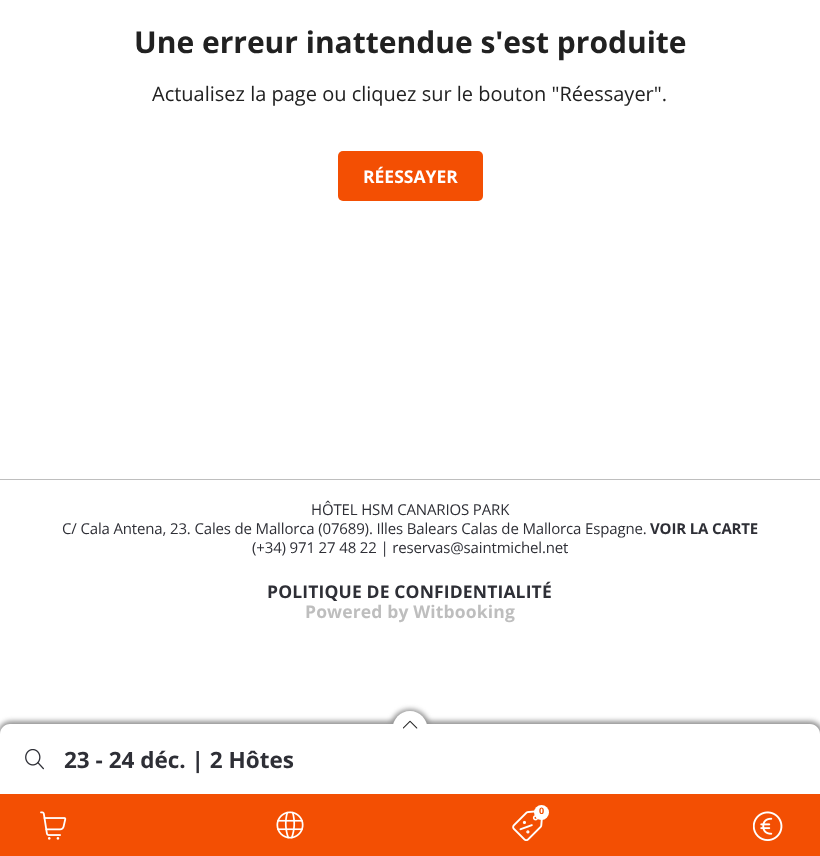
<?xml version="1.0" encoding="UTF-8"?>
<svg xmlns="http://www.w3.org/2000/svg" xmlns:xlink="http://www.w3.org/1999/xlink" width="820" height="856">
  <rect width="100%" height="100%" fill="#ffffff" />
  <rect x="338" y="151" width="145" height="50" rx="5" fill="#f34f03" />
  <rect y="479" width="820" height="1" fill="#bebebe" />
  <rect x="-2" y="721" width="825" height="75" rx="13" fill="#949494" filter="blur(2.5px)" />
  <rect x="390" y="709" width="40" height="40" rx="20" fill="#949494" filter="blur(2.5px)" />
  <path d="M 10 724 h 800 c 5.5 0 10 4.5 10 10 v 60 h -820 v -60 c 0 -5.5 4.5 -10 10 -10 z" fill="#ffffff" />
  <path d="M 410 746 c -9.5 0 -17.5 -7.5 -17.5 -17 c 0 -10 8 -18 17.5 -18 c 9.5 0 17.5 8 17.5 18 c 0 9.5 -8 17 -17.5 17 z" fill="#ffffff" />
  <image x="403" y="720" width="15" height="9" xlink:href="image1.png" />
  <image x="25" y="749" width="19" height="21" xlink:href="image2.png" />
  <rect y="794" width="820" height="62" fill="#f34f03" />
  <image x="40" y="811" width="27" height="29" xlink:href="image3.png" />
  <image x="276" y="811" width="28" height="28" xlink:href="image4.png" />
  <image x="512" y="810" width="31" height="31" xlink:href="image5.png" />
  <circle cx="541.5" cy="812.5" r="7.5" fill="#ffffff" />
  <image x="753" y="811" width="30" height="30" xlink:href="image6.png" />
  <text x="134" y="53" style="font-family: Open Sans; font-size: 30px; font-weight: bold; fill: #212121">Une erreur inattendue s'est produite</text>
  <text x="152" y="101" style="font-family: Open Sans; font-size: 20px; fill: #212121">Actualisez la page ou cliquez sur le bouton "Réessayer".</text>
  <text x="363" y="183" style="font-family: Open Sans; font-size: 17.5px; font-weight: bold; fill: #ffffff">RÉESSAYER</text>
  <text x="311" y="515" style="font-family: Open Sans; font-size: 15px; letter-spacing: -0.15px; fill: #2e2f36">HÔTEL HSM CANARIOS PARK</text>
  <text x="62" y="534" style="font-family: Open Sans; font-size: 15px; letter-spacing: -0.15px; fill: #2e2f36">C/ Cala Antena, 23. Cales de Mallorca (07689). Illes Balears Calas de Mallorca Espagne.</text>
  <text x="650" y="534" style="font-family: Open Sans; font-size: 15px; font-weight: bold; letter-spacing: -0.15px; fill: #2e2f36">VOIR LA CARTE</text>
  <text x="252" y="553" style="font-family: Open Sans; font-size: 15px; letter-spacing: -0.15px; fill: #2e2f36">(+34) 971 27 48 22 | reservas@saintmichel.net</text>
  <text x="267" y="598" style="font-family: Open Sans; font-size: 17.5px; font-weight: bold; letter-spacing: 0.15px; fill: #2e2f36">POLITIQUE DE CONFIDENTIALITÉ</text>
  <text x="305" y="618" style="font-family: Open Sans; font-size: 17.5px; font-weight: bold; letter-spacing: 0.15px; fill: #bebebe">Powered by Witbooking</text>
  <text x="64" y="768" style="font-family: Open Sans; font-size: 22.5px; font-weight: bold; fill: #2e2f36">23 - 24 déc. | 2 Hôtes</text>
  <text x="539" y="814" style="font-family: Open Sans; font-size: 9px; font-weight: bold; fill: #f34f03">0</text>
</svg>
